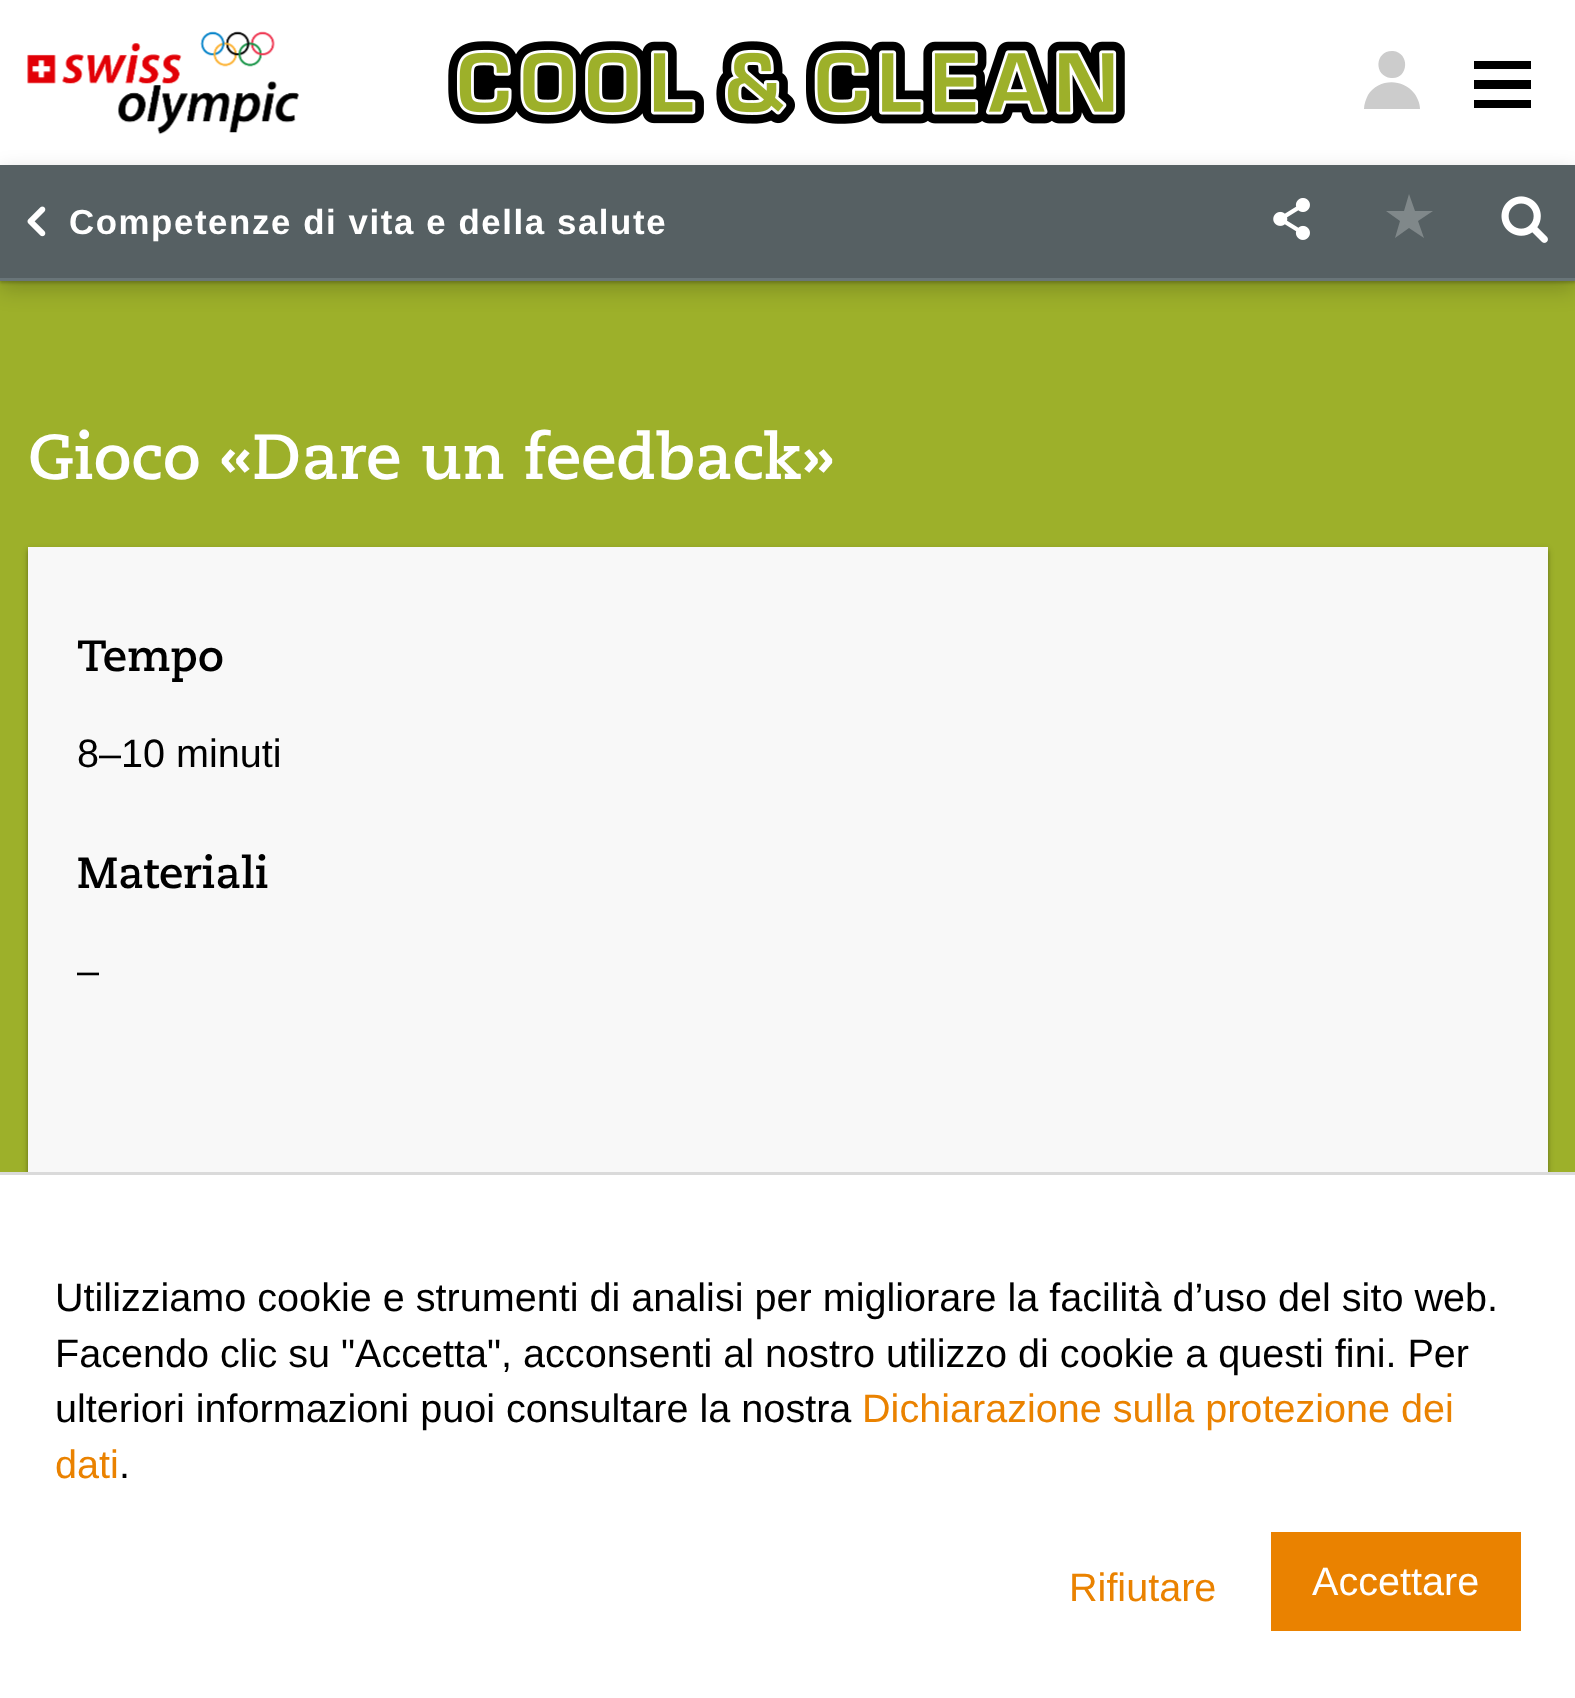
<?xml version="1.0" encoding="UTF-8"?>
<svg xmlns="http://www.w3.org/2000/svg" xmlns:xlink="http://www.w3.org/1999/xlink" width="1575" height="1698">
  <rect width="100%" height="100%" fill="#9db02a" />
  <rect width="1575" height="165" fill="#ffffff" />
  <image x="27" y="31" width="272" height="104" xlink:href="image1.png" />
  <image x="448" y="41" width="677" height="83" xlink:href="image2.png" />
  <path d="M 1364 109 c 0 -5 2 -10 4 -14 c 10 -16 34 -17 46 -2 c 3 4 6 10 6 16 z m 27 -31 c -18 -2 -16 -28 2 -27 c 18 2 15 29 -2 27 z" fill="#cccccc" />
  <path d="M 1474 69 v -8 h 57 v 8 z m 0 20 v -9 h 57 v 9 z m 0 19 v -8 h 57 v 8 z" fill="#000000" />
  <rect y="173" width="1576" height="116" fill="#000000" fill-opacity="0.2" filter="blur(11px)" />
  <rect y="168" width="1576" height="115" fill="#000000" fill-opacity="0.2" filter="blur(1.5px)" />
  <rect y="165" width="1575" height="113" fill="#566063" />
  <rect y="278" width="1575" height="3" fill="#697579" />
  <image x="27" y="206" width="19" height="31" xlink:href="image3.png" />
  <image x="1273" y="198" width="37" height="42" xlink:href="image4.png" />
  <path d="M 1409 194 l 6 17 h 18 l -15 10 l 6 17 l -15 -10 l -14 10 l 5 -17 l -14 -10 h 18 z" fill="#80888a" />
  <image x="1501" y="196" width="47" height="47" xlink:href="image5.png" />
  <rect x="28" y="550" width="1520" height="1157" fill="#000000" fill-opacity="0.24" filter="blur(3px)" />
  <rect x="28" y="550" width="1520" height="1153" fill="#000000" fill-opacity="0.2" filter="blur(1.5px)" />
  <rect x="28" y="547" width="1520" height="625" fill="#f8f8f8" />
  <rect y="1175" width="1575" height="523" fill="#ffffff" />
  <rect y="1172" width="1575" height="3" fill="#dadada" />
  <rect x="1271" y="1532" width="250" height="99" fill="#ea8200" />
  <text x="69" y="234" style="font-family: Liberation Sans; font-size: 34.8px; font-weight: bold; letter-spacing: 1.6px; fill: #ffffff">Competenze di vita e della salute</text>
  <text x="28" y="479" style="font-family: 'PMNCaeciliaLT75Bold'; font-size: 63.4px; font-weight: bold; fill: #ffffff">Gioco «Dare un feedback»</text>
  <text x="77" y="671" style="font-family: 'PMNCaeciliaLT75Bold'; font-size: 43.5px; font-weight: bold; fill: #000000">Tempo</text>
  <text x="77" y="767" style="font-family: Liberation Sans; font-size: 39.6px; fill: #000000">8–10 minuti</text>
  <text x="77" y="888" style="font-family: 'PMNCaeciliaLT75Bold'; font-size: 43.5px; font-weight: bold; fill: #000000">Materiali</text>
  <text x="77" y="984" style="font-family: Liberation Sans; font-size: 39.6px; fill: #000000">–</text>
  <text x="55" y="1311" style="font-family: Liberation Sans; font-size: 39.6px; fill: #000000">Utilizziamo cookie e strumenti di analisi per migliorare la facilità d’uso del sito web.</text>
  <text x="55" y="1367" style="font-family: Liberation Sans; font-size: 39.6px; fill: #000000">Facendo clic su "Accetta", acconsenti al nostro utilizzo di cookie a questi fini. Per</text>
  <text x="55" y="1422" style="font-family: Liberation Sans; font-size: 39.6px; fill: #000000">ulteriori informazioni puoi consultare la nostra</text>
  <text x="862" y="1422" style="font-family: Liberation Sans; font-size: 39.6px; fill: #ea8200">Dichiarazione sulla protezione dei</text>
  <text x="55" y="1478" style="font-family: Liberation Sans; font-size: 39.6px; fill: #ea8200">dati</text>
  <text x="119" y="1478" style="font-family: Liberation Sans; font-size: 39.6px; fill: #000000">.</text>
  <text x="1069" y="1601" style="font-family: Liberation Sans; font-size: 39.6px; fill: #ea8200">Rifiutare</text>
  <text x="1312" y="1595" style="font-family: Liberation Sans; font-size: 39.6px; fill: #ffffff">Accettare</text>
</svg>
